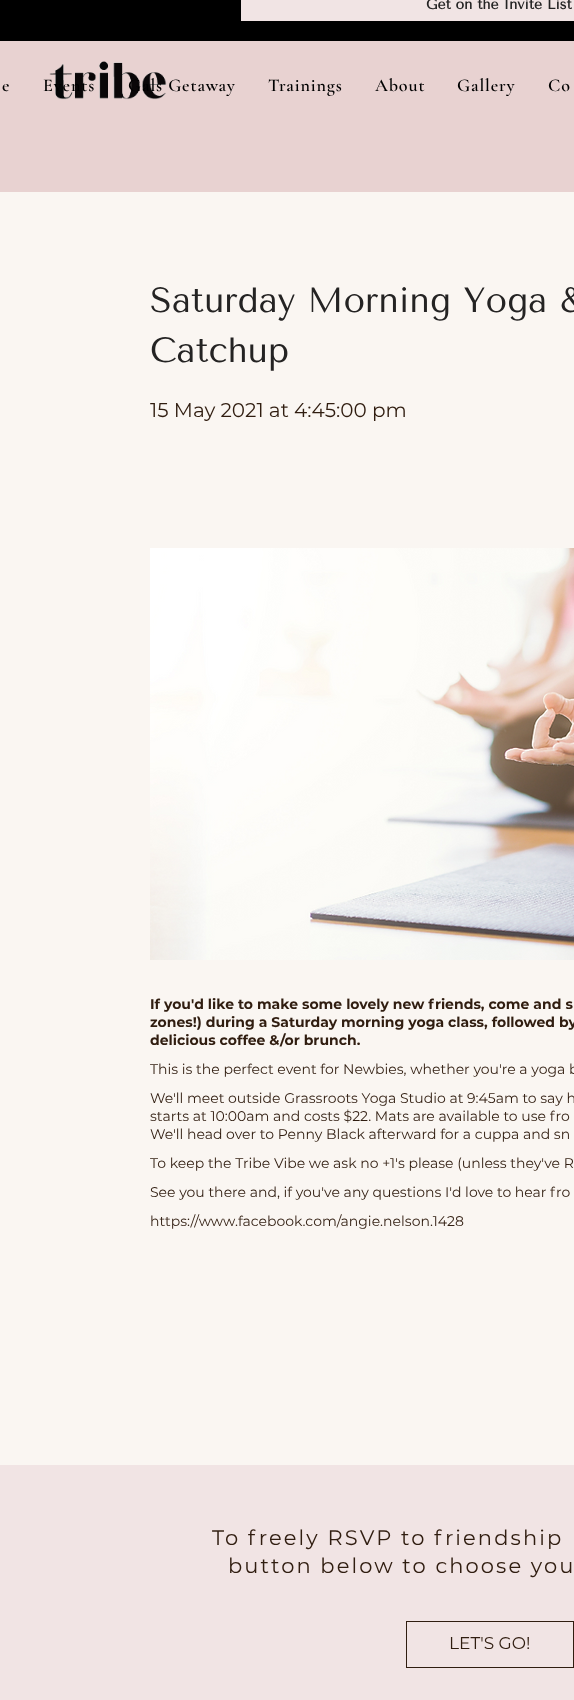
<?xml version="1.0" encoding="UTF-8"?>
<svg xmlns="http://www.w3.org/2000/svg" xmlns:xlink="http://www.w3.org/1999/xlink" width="574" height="1700">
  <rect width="100%" height="100%" fill="#faf6f2" />
  <rect width="574" height="41" fill="#000000" />
  <rect x="241" width="333" height="21" fill="#f1e4e4" />
  <rect y="41" width="574" height="151" fill="#e8d2d1" />
  <image x="49" y="61" width="118" height="39" xlink:href="image1.png" />
  <image x="150" y="548" width="424" height="412" xlink:href="image2.png" />
  <rect y="1465" width="574" height="235" fill="#f1e4e4" />
  <rect x="406.5" y="1621.5" width="167" height="46" fill="none" stroke="#301d10" />
  <text x="426" y="9" style="font-family: Tenor Sans; font-size: 14px; font-weight: bold; fill: #242323">Get on the Invite List</text>
  <text x="2" y="91" style="font-family: Cormorant Garamond; font-size: 18px; font-weight: 600; letter-spacing: 0.9px; fill: #000000">e</text>
  <text x="43" y="91" style="font-family: Cormorant Garamond; font-size: 18px; font-weight: 600; letter-spacing: 0.9px; fill: #000000">Events</text>
  <text x="128" y="91" style="font-family: Cormorant Garamond; font-size: 18px; font-weight: 600; letter-spacing: 0.9px; fill: #000000">Gals Getaway</text>
  <text x="268" y="91" style="font-family: Cormorant Garamond; font-size: 18px; font-weight: 600; letter-spacing: 0.9px; fill: #000000">Trainings</text>
  <text x="375" y="91" style="font-family: Cormorant Garamond; font-size: 18px; font-weight: 600; letter-spacing: 0.9px; fill: #000000">About</text>
  <text x="457" y="91" style="font-family: Cormorant Garamond; font-size: 18px; font-weight: 600; letter-spacing: 0.9px; fill: #000000">Gallery</text>
  <text x="548" y="91" style="font-family: Cormorant Garamond; font-size: 18px; font-weight: 600; letter-spacing: 0.9px; fill: #000000">Co</text>
  <text x="150" y="312" style="font-family: Tenor Sans; font-size: 35px; fill: #242323">Saturday Morning Yoga &amp;</text>
  <text x="150" y="362" style="font-family: Tenor Sans; font-size: 35px; fill: #242323">Catchup</text>
  <text x="150" y="417" style="font-family: Montserrat; font-size: 20px; fill: #301d10">15 May 2021 at 4:45:00 pm</text>
  <text x="150" y="1009" style="font-family: Montserrat; font-size: 14px; font-weight: bold; fill: #301d10">If you'd like to make some lovely new friends, come and s</text>
  <text x="150" y="1027" style="font-family: Montserrat; font-size: 14px; font-weight: bold; fill: #301d10">zones!) during a Saturday morning yoga class, followed by</text>
  <text x="150" y="1045" style="font-family: Montserrat; font-size: 14px; font-weight: bold; fill: #301d10">delicious coffee &amp;/or brunch.</text>
  <text x="150" y="1074" style="font-family: Montserrat; font-size: 14px; fill: #301d10">This is the perfect event for Newbies, whether you're a yoga b</text>
  <text x="150" y="1103" style="font-family: Montserrat; font-size: 14px; fill: #301d10">We'll meet outside Grassroots Yoga Studio at 9:45am to say h</text>
  <text x="150" y="1121" style="font-family: Montserrat; font-size: 14px; fill: #301d10">starts at 10:00am and costs $22. Mats are available to use fro</text>
  <text x="150" y="1139" style="font-family: Montserrat; font-size: 14px; fill: #301d10">We'll head over to Penny Black afterward for a cuppa and sn</text>
  <text x="150" y="1168" style="font-family: Montserrat; font-size: 14px; fill: #301d10">To keep the Tribe Vibe we ask no +1's please (unless they've R</text>
  <text x="150" y="1197" style="font-family: Montserrat; font-size: 14px; fill: #301d10">See you there and, if you've any questions I'd love to hear fro</text>
  <text x="150" y="1226" style="font-family: Montserrat; font-size: 14px; fill: #301d10">https://www.facebook.com/angie.nelson.1428</text>
  <text x="212" y="1545" style="font-family: Montserrat; font-size: 21px; letter-spacing: 2.1px; fill: #301d10">To freely RSVP to friendship</text>
  <text x="228" y="1573" style="font-family: Montserrat; font-size: 21px; letter-spacing: 2.1px; fill: #301d10">button below to choose you</text>
  <text x="449" y="1649" style="font-family: Montserrat; font-size: 17px; fill: #301d10">LET'S GO!</text>
</svg>
